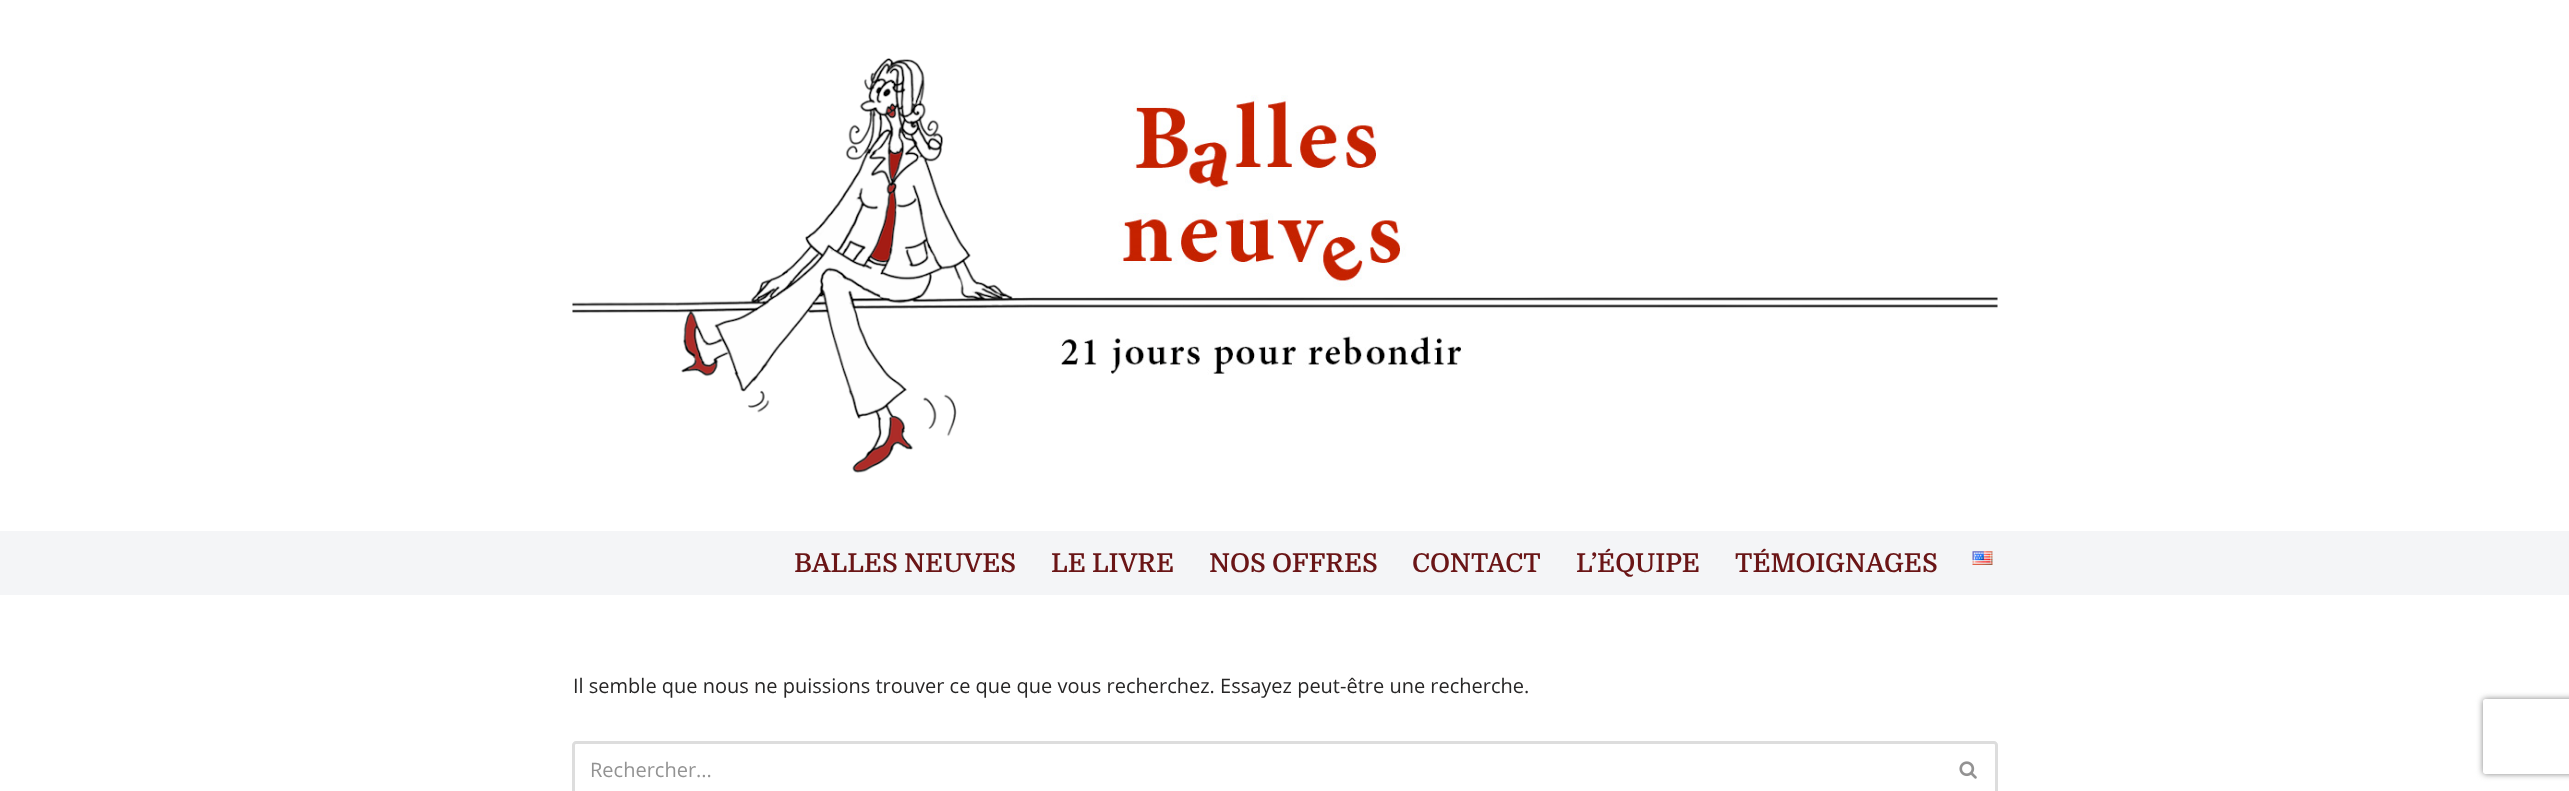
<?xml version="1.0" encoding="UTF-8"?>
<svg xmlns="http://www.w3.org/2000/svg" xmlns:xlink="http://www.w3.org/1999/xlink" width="2569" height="791">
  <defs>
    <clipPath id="clip1"><path d="M 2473 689 h 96 v 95 h -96 z m 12.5 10 h 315 c 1.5 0 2.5 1 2.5 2.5 v 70 c 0 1.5 -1 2.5 -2.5 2.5 h -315 c -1.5 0 -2.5 -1 -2.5 -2.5 v -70 c 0 -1.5 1 -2.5 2.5 -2.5 z" clip-rule="evenodd" /></clipPath>
  </defs>
  <rect width="100%" height="100%" fill="#ffffff" />
  <image x="572" y="58" width="1426" height="415" xlink:href="image1.png" />
  <rect y="531" width="2569" height="64" fill="#f4f5f7" />
  <image x="1972" y="551" width="21" height="14" xlink:href="image2.png" />
  <path d="M 576 741 h 1365 v 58 h -1365 c -2 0 -4 -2 -4 -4 v -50 c 0 -2 2 -4 4 -4 z m 0 3 h 1365 v 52 h -1365 c 0 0 -1 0 -1 -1 v -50 c 0 -1 1 -1 1 -1 z" fill="#dddddd" fill-rule="evenodd" />
  <path d="M 1941 741 h 53 c 2 0 4 2 4 4 v 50 c 0 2 -2 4 -4 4 h -53 z m 0 3 h 53 c 0 0 1 0 1 1 v 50 c 0 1 -1 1 -1 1 h -53 z" fill="#dddddd" fill-rule="evenodd" />
  <image x="1959" y="761" width="18" height="18" xlink:href="image3.png" />
  <g clip-path="url(#clip1)">
    <rect x="2483" y="699" width="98" height="75" rx="2.5" fill="#808080" filter="blur(3px)" />
  </g>
  <text x="794" y="572" style="font-family: Domine; font-size: 26px; font-weight: 600; fill: #6a1516">BALLES NEUVES</text>
  <text x="1051" y="572" style="font-family: Domine; font-size: 26px; font-weight: 600; fill: #6a1516">LE LIVRE</text>
  <text x="1209" y="572" style="font-family: Domine; font-size: 26px; font-weight: 600; fill: #6a1516">NOS OFFRES</text>
  <text x="1412" y="572" style="font-family: Domine; font-size: 26px; font-weight: 600; fill: #6a1516">CONTACT</text>
  <text x="1576" y="572" style="font-family: Domine; font-size: 26px; font-weight: 600; fill: #6a1516">L’ÉQUIPE</text>
  <text x="1735" y="572" style="font-family: Domine; font-size: 26px; font-weight: 600; fill: #6a1516">TÉMOIGNAGES</text>
  <text x="573" y="693" style="font-family: Open Sans; font-size: 20px; fill: #272626">Il semble que nous ne puissions trouver ce que que vous recherchez. Essayez peut-être une recherche.</text>
  <text x="590" y="777" style="font-family: Open Sans; font-size: 20px; fill: #939393">Rechercher...</text>
</svg>
